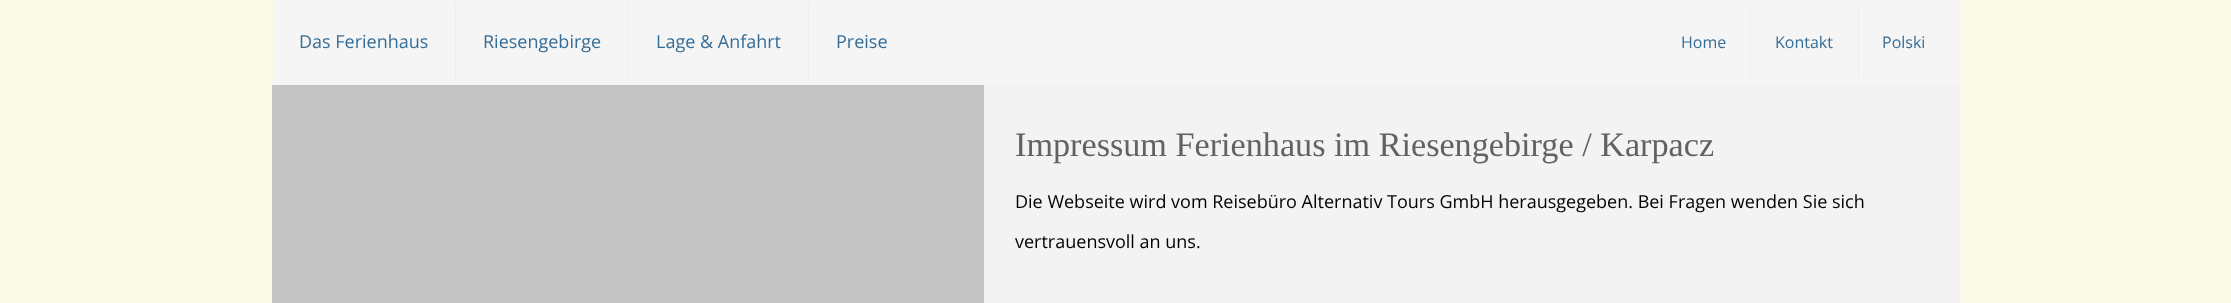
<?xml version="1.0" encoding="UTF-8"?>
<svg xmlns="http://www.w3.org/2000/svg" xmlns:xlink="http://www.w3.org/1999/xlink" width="2231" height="303">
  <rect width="100%" height="100%" fill="#fbf9e8" />
  <rect x="273" width="1687" height="85" fill="#f5f5f5" />
  <rect x="455" y="3" width="1" height="77" fill="#ededed" />
  <rect x="628" y="3" width="1" height="77" fill="#ededed" />
  <rect x="808" y="3" width="1" height="77" fill="#ededed" />
  <rect x="1750" y="6" width="1" height="72" fill="#ededed" />
  <rect x="1858" y="6" width="1" height="72" fill="#ededed" />
  <rect x="272" y="85" width="712" height="218" fill="#c3c3c3" />
  <rect x="984" y="85" width="976" height="218" fill="#f3f3f3" />
  <text x="299" y="48" style="font-family: Open Sans; font-size: 18px; fill: #356d97">Das Ferienhaus</text>
  <text x="483" y="48" style="font-family: Open Sans; font-size: 18px; fill: #356d97">Riesengebirge</text>
  <text x="656" y="48" style="font-family: Open Sans; font-size: 18px; fill: #356d97">Lage &amp; Anfahrt</text>
  <text x="836" y="48" style="font-family: Open Sans; font-size: 18px; fill: #356d97">Preise</text>
  <text x="1681" y="48" style="font-family: Open Sans; font-size: 16px; fill: #356d97">Home</text>
  <text x="1775" y="48" style="font-family: Open Sans; font-size: 16px; fill: #356d97">Kontakt</text>
  <text x="1882" y="48" style="font-family: Open Sans; font-size: 16px; fill: #356d97">Polski</text>
  <text x="1015" y="156" style="font-family: Liberation Serif; font-size: 34.2px; fill: #626262">Impressum Ferienhaus im Riesengebirge / Karpacz</text>
  <text x="1015" y="208" style="font-family: Open Sans; font-size: 18px; fill: #000000">Die Webseite wird vom Reisebüro Alternativ Tours GmbH herausgegeben. Bei Fragen wenden Sie sich</text>
  <text x="1015" y="248" style="font-family: Open Sans; font-size: 18px; fill: #000000">vertrauensvoll an uns.</text>
</svg>
